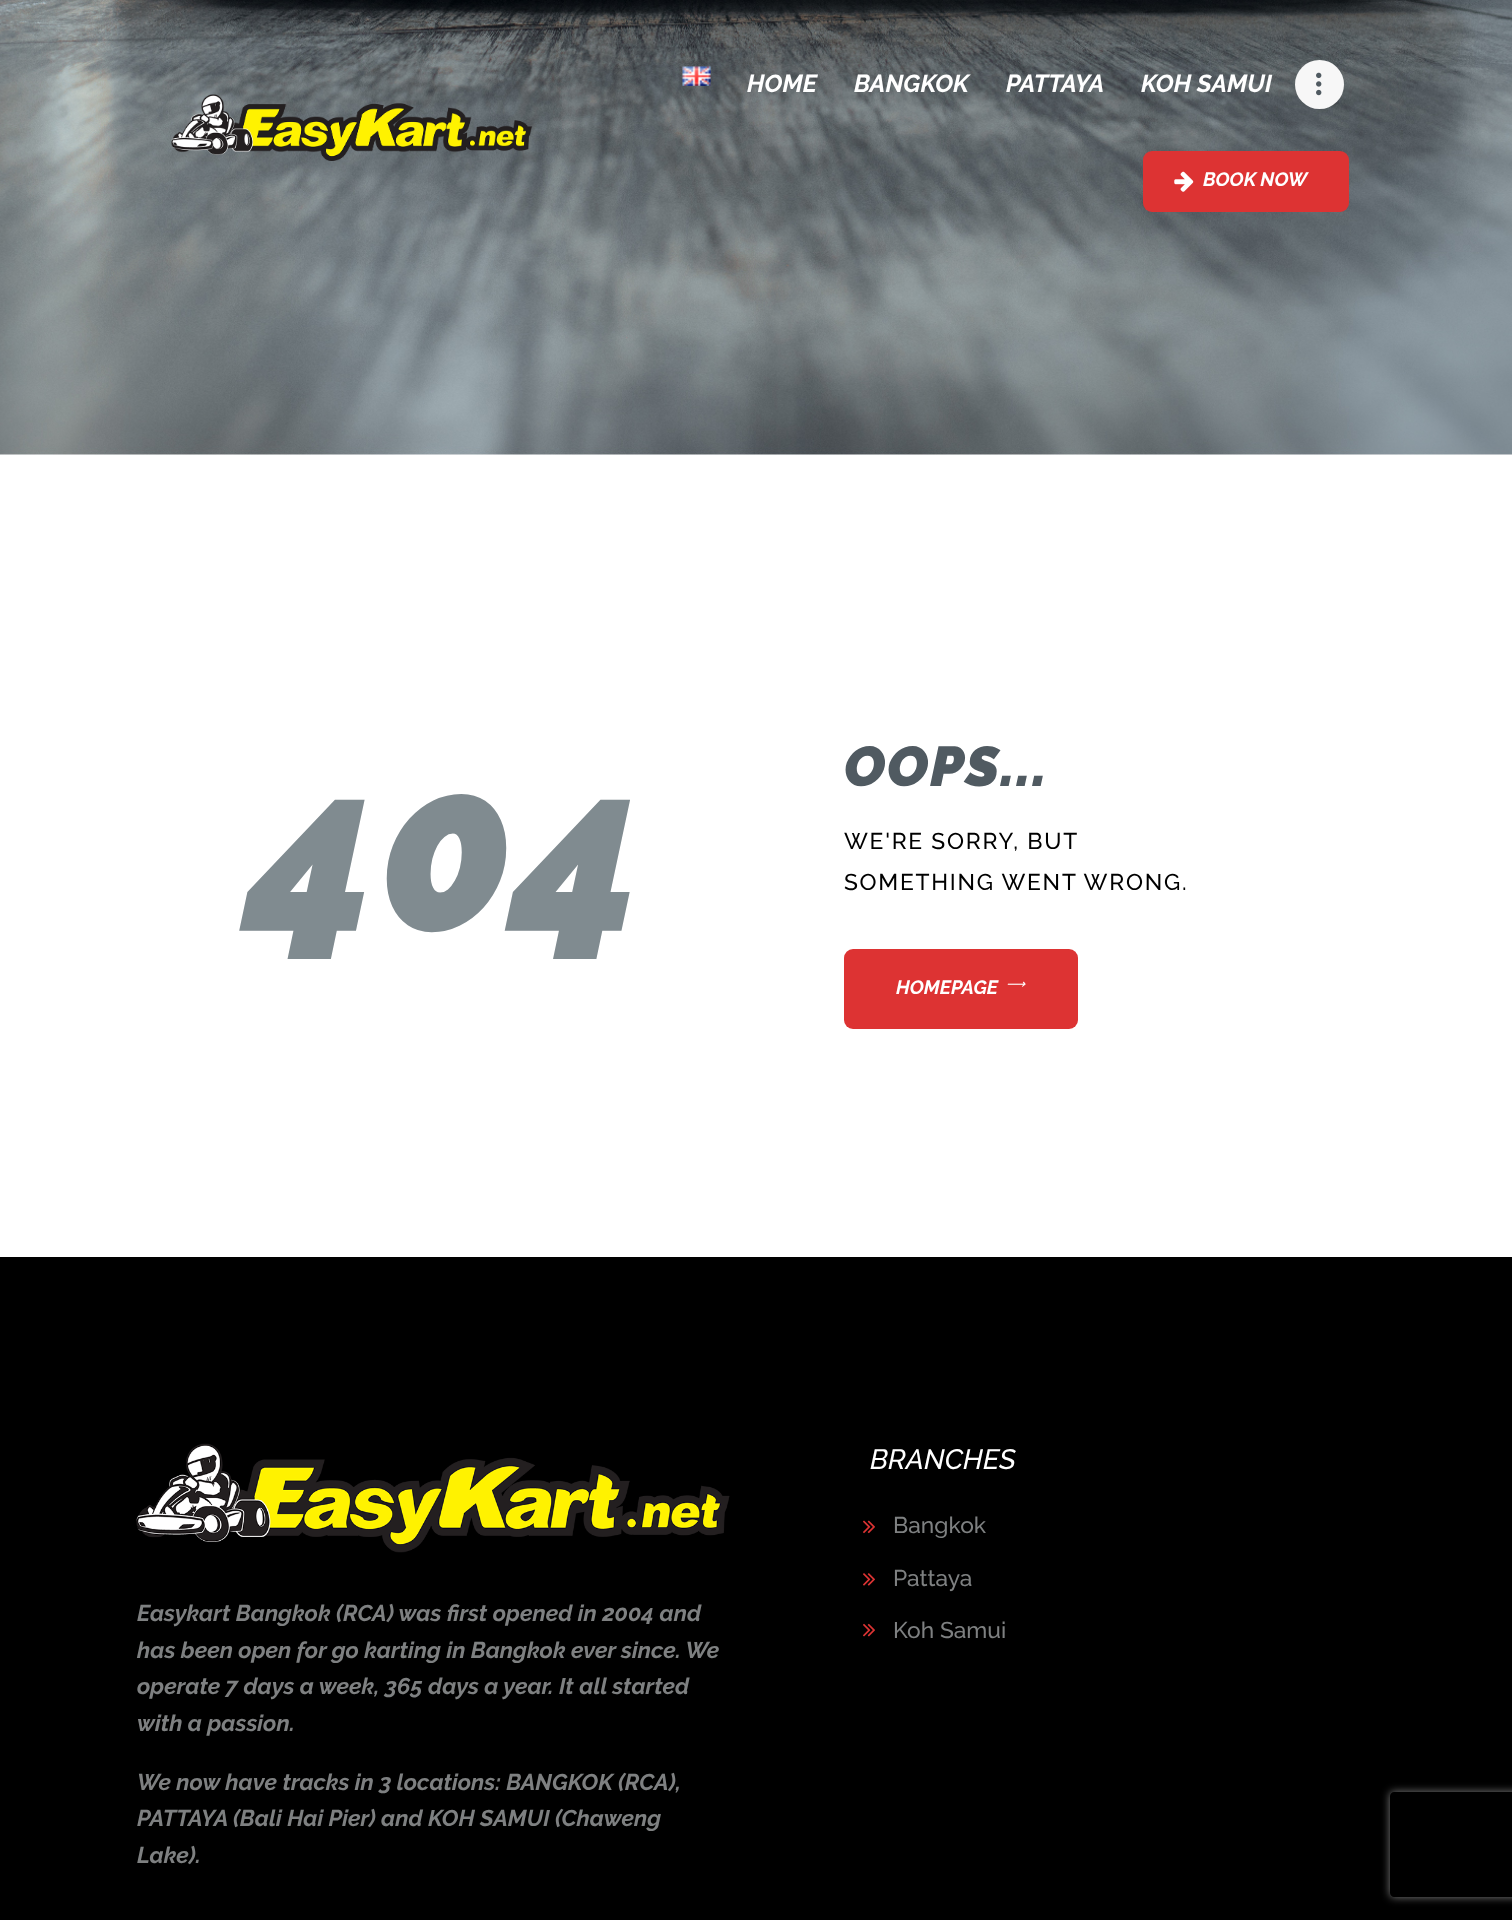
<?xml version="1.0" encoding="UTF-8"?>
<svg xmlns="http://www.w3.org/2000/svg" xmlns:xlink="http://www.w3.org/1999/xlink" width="1512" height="1920">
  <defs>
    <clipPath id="clip1"><path d="M 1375 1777 h 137 v 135 h -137 z m 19 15 h 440 c 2 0 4 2 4 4 v 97 c 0 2 -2 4 -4 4 h -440 c -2 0 -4 -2 -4 -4 v -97 c 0 -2 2 -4 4 -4 z" clip-rule="evenodd" /></clipPath>
  </defs>
  <rect width="100%" height="100%" fill="#ffffff" />
  <image x="0" y="0" width="1512" height="455" xlink:href="image1.png" />
  <image x="171" y="94" width="361" height="67" xlink:href="image2.png" />
  <image x="682" y="66" width="29" height="20" xlink:href="image3.png" />
  <circle cx="1319.5" cy="84.5" r="24.5" fill="#f7f7f7" />
  <image x="1316" y="72" width="6" height="24" xlink:href="image4.png" />
  <rect x="1143" y="151" width="206" height="61" rx="9" fill="#dd3333" />
  <image x="1174" y="171" width="20" height="21" xlink:href="image5.png" />
  <rect x="844" y="949" width="234" height="80" rx="9" fill="#dd3333" />
  <image x="1007" y="981" width="19" height="6" xlink:href="image6.png" />
  <rect y="1257" width="1512" height="663" fill="#000000" />
  <image x="863" y="1520" width="12" height="14" xlink:href="image7.png" />
  <image x="863" y="1573" width="12" height="13" xlink:href="image8.png" />
  <image x="863" y="1623" width="12" height="14" xlink:href="image9.png" />
  <image x="136" y="1443" width="594" height="110" xlink:href="image10.png" />
  <g clip-path="url(#clip1)">
    <rect x="1390" y="1792" width="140" height="105" rx="4" fill="#808080" filter="blur(4.5px)" />
  </g>
  <text x="747" y="92" style="font-family: Raleway; font-size: 24.5px; font-weight: bold; font-style: italic; fill: #ffffff">HOME</text>
  <text x="854" y="92" style="font-family: Raleway; font-size: 24.5px; font-weight: bold; font-style: italic; fill: #ffffff">BANGKOK</text>
  <text x="1006" y="92" style="font-family: Raleway; font-size: 24.5px; font-weight: bold; font-style: italic; fill: #ffffff">PATTAYA</text>
  <text x="1141" y="92" style="font-family: Raleway; font-size: 24.5px; font-weight: bold; font-style: italic; fill: #ffffff">KOH SAMUI</text>
  <text x="1203" y="186" style="font-family: Raleway; font-size: 19.25px; font-weight: bold; font-style: italic; fill: #ffffff">BOOK NOW</text>
  <text x="249" y="930" style="font-family: Raleway; font-size: 228px; font-weight: 900; font-style: italic; fill: #808b90">404</text>
  <text x="844" y="786" style="font-family: Raleway; font-size: 56px; font-weight: 900; font-style: italic; letter-spacing: 1.75px; fill: #505a61">OOPS...</text>
  <text x="844" y="849" style="font-family: Raleway; font-size: 22.75px; font-weight: 500; letter-spacing: 1.75px; fill: #000000">WE'RE SORRY, BUT</text>
  <text x="844" y="890" style="font-family: Raleway; font-size: 22.75px; font-weight: 500; letter-spacing: 1.75px; fill: #000000">SOMETHING WENT WRONG.</text>
  <text x="896" y="994" style="font-family: Raleway; font-size: 19.25px; font-weight: bold; font-style: italic; fill: #ffffff">HOMEPAGE</text>
  <text x="870" y="1469" style="font-family: Raleway; font-size: 28px; font-weight: 500; font-style: italic; fill: #ffffff">BRANCHES</text>
  <text x="893" y="1533" style="font-family: Raleway; font-size: 22.75px; font-weight: 500; fill: #7e8081">Bangkok</text>
  <text x="893" y="1586" style="font-family: Raleway; font-size: 22.75px; font-weight: 500; fill: #7e8081">Pattaya</text>
  <text x="893" y="1638" style="font-family: Raleway; font-size: 22.75px; font-weight: 500; fill: #7e8081">Koh Samui</text>
  <text x="137" y="1621" style="font-family: Raleway; font-size: 22.75px; font-weight: bold; font-style: italic; fill: #7e8081">Easykart Bangkok (RCA) was first opened in 2004 and</text>
  <text x="137" y="1658" style="font-family: Raleway; font-size: 22.75px; font-weight: bold; font-style: italic; fill: #7e8081">has been open for go karting in Bangkok ever since. We</text>
  <text x="137" y="1694" style="font-family: Raleway; font-size: 22.75px; font-weight: bold; font-style: italic; fill: #7e8081">operate 7 days a week, 365 days a year. It all started</text>
  <text x="137" y="1731" style="font-family: Raleway; font-size: 22.75px; font-weight: bold; font-style: italic; fill: #7e8081">with a passion.</text>
  <text x="137" y="1790" style="font-family: Raleway; font-size: 22.75px; font-weight: bold; font-style: italic; fill: #7e8081">We now have tracks in 3 locations: BANGKOK (RCA),</text>
  <text x="137" y="1826" style="font-family: Raleway; font-size: 22.75px; font-weight: bold; font-style: italic; fill: #7e8081">PATTAYA (Bali Hai Pier) and KOH SAMUI (Chaweng</text>
  <text x="137" y="1863" style="font-family: Raleway; font-size: 22.75px; font-weight: bold; font-style: italic; fill: #7e8081">Lake).</text>
</svg>
